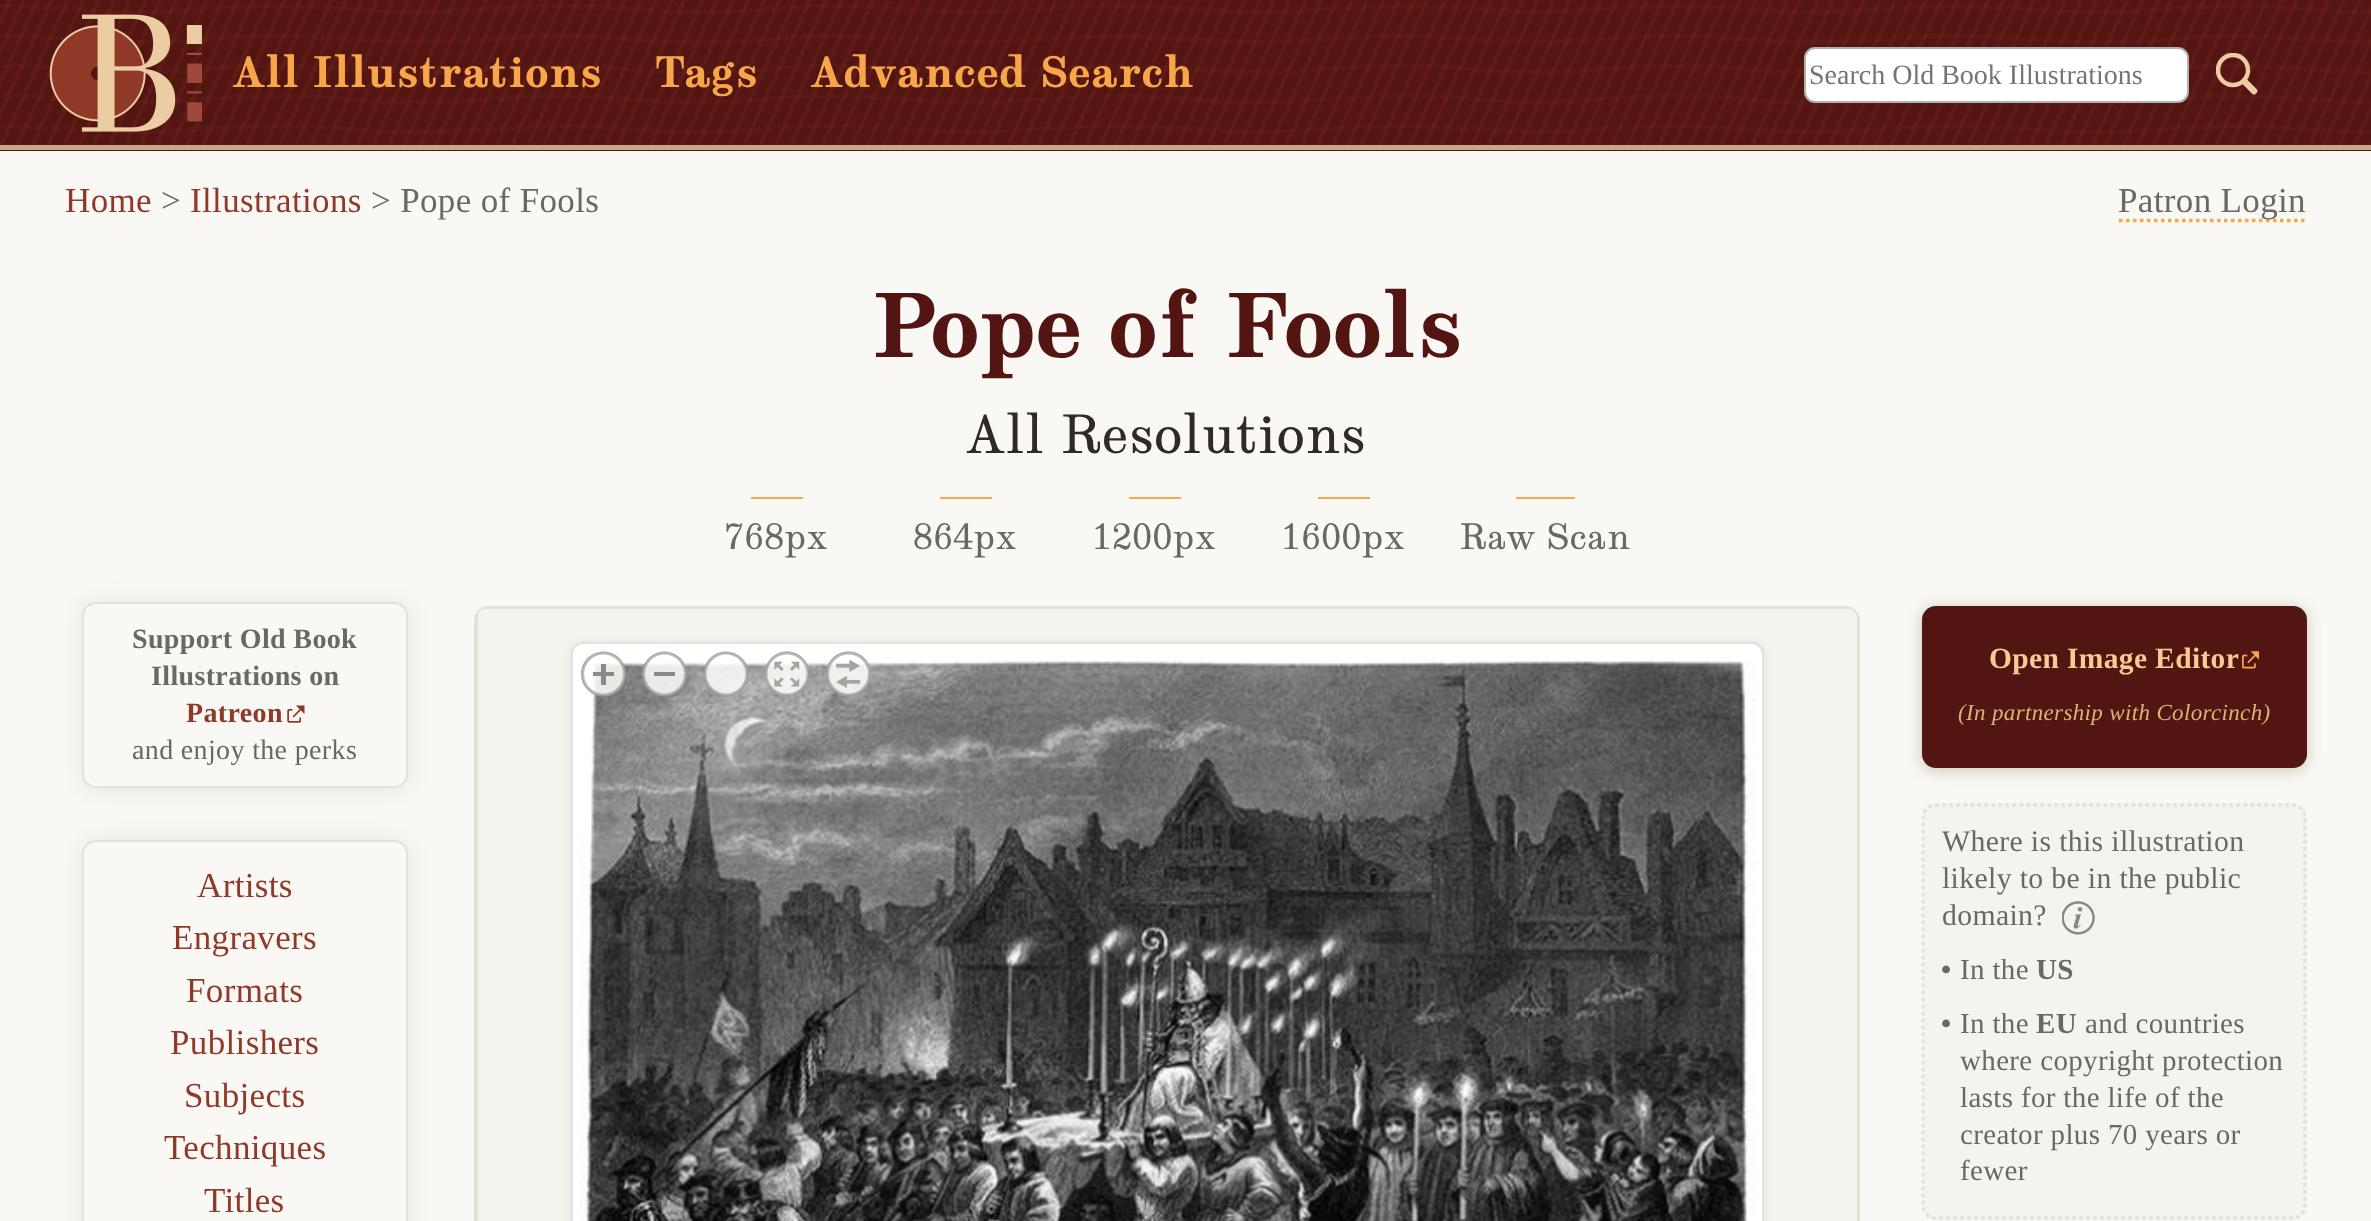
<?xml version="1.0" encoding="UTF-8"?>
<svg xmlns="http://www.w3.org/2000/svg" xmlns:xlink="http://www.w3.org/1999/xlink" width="2371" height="1221">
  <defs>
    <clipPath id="clip1"><rect x="2216" y="53" width="42" height="42" /></clipPath>
    <clipPath id="clip2"><path d="M 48 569 h 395 v 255 h -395 z m 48 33 h 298 c 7.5 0 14 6.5 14 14 v 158 c 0 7.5 -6.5 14 -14 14 h -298 c -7.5 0 -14 -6.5 -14 -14 v -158 c 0 -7.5 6.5 -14 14 -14 z" clip-rule="evenodd" /></clipPath>
    <clipPath id="clip3"><path d="M 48 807 h 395 v 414 h -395 z m 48 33 h 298 c 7.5 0 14 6.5 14 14 v 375 c 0 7.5 -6.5 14 -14 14 h -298 c -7.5 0 -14 -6.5 -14 -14 v -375 c 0 -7.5 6.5 -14 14 -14 z" clip-rule="evenodd" /></clipPath>
  </defs>
  <rect width="100%" height="100%" fill="#f9f8f4" />
  <rect width="2371" height="151" fill="#521512" />
  <image x="0" y="4" width="2371" height="130" xlink:href="image1.png" />
  <rect y="145" width="2371" height="5" fill="#c5a98a" />
  <image x="0" y="0" width="2371" height="145" xlink:href="image2.png" />
  <image x="49" y="14" width="153" height="118" xlink:href="image3.png" />
  <rect x="1805" y="48" width="383" height="54" rx="10" fill="#ffffff" stroke="#b4b1aa" stroke-width="2" />
  <g clip-path="url(#clip1)">
    <circle cx="2233" cy="70" r="15" fill="none" stroke="#eccda3" stroke-width="4.4" />
  </g>
  <path d="M 2245 82 l 9 9" fill="none" stroke="#eccda3" stroke-width="6.6" stroke-linecap="round" />
  <path d="M 2119 220.5 h 187.5" fill="none" stroke="#f7a74a" stroke-width="3.5" stroke-dasharray="3.5 3.5" />
  <g clip-path="url(#clip2)">
    <rect x="81" y="602" width="329" height="189" rx="16" fill="#e7e6e0" filter="blur(10.5px)" />
  </g>
  <rect x="83" y="603" width="324" height="184" rx="13" fill="none" stroke="#e3e1d9" stroke-width="2" />
  <image x="287" y="705" width="18" height="18" xlink:href="image4.png" />
  <g clip-path="url(#clip3)">
    <rect x="81" y="840" width="329" height="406" rx="16" fill="#e7e6e0" filter="blur(10.5px)" />
  </g>
  <rect x="83" y="841" width="324" height="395" rx="13" fill="none" stroke="#e3e1d9" stroke-width="2" />
  <rect x="751" y="497" width="52" height="2" fill="#f7a74a" />
  <rect x="940" y="497" width="52" height="2" fill="#f7a74a" />
  <rect x="1129" y="497" width="52" height="2" fill="#f7a74a" />
  <rect x="1318" y="497" width="52" height="2" fill="#f7a74a" />
  <rect x="1516" y="497" width="59" height="2" fill="#f7a74a" />
  <path d="M 488 607 h 1358 c 7 0 13 6 13 13 v 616 h -1384 v -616 c 0 -7 6 -13 13 -13 z" fill="#f5f3ed" stroke="#e3e1d9" stroke-width="2" />
  <rect x="481" y="607" width="1372" height="2" fill="#e3e1d9" />
  <rect x="1857" y="613" width="2" height="608" fill="#e3e1d9" />
  <rect x="476" y="613" width="2" height="608" fill="#e3e1d9" />
  <rect x="571" y="644" width="1193" height="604" rx="12" fill="#e2e0d9" filter="blur(5px)" />
  <rect x="572" y="644" width="1190" height="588" rx="11" fill="#ffffff" />
  <rect x="572" y="643" width="1191" height="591" rx="11" fill="none" stroke="#e3e1d9" stroke-width="2" />
  <image x="578" y="661" width="1179" height="560" xlink:href="image9.png" />
  <circle cx="603.5" cy="674" r="21" fill="#ffffff" fill-opacity="0.5" stroke="#8c8a82" stroke-opacity="0.5" stroke-width="3.1" />
  <circle cx="603.5" cy="674" r="21" fill="#ffffff" fill-opacity="0.67" stroke="#a6a39a" stroke-opacity="0.67" stroke-width="3.1" />
  <rect x="601" y="664" width="5" height="21" fill="#8c8a82" />
  <rect x="593" y="672" width="21" height="4" fill="#8c8a82" />
  <circle cx="664.5" cy="674" r="21" fill="#ffffff" fill-opacity="0.5" stroke="#8c8a82" stroke-opacity="0.5" stroke-width="3.1" />
  <circle cx="664.5" cy="674" r="21" fill="#ffffff" fill-opacity="0.67" stroke="#a6a39a" stroke-opacity="0.67" stroke-width="3.1" />
  <rect x="654" y="672" width="21" height="4" fill="#8c8a82" />
  <circle cx="726" cy="674" r="21" fill="#ffffff" fill-opacity="0.5" stroke="#8c8a82" stroke-opacity="0.5" stroke-width="3.1" />
  <circle cx="726" cy="674" r="21" fill="#ffffff" fill-opacity="0.67" stroke="#a6a39a" stroke-opacity="0.67" stroke-width="3.1" />
  <image x="764" y="651" width="45" height="46" xlink:href="image5.png" />
  <image x="764" y="651" width="46" height="46" xlink:href="image6.png" />
  <image x="826" y="651" width="45" height="46" xlink:href="image7.png" />
  <image x="826" y="651" width="45" height="46" xlink:href="image8.png" />
  <rect x="1920" y="606" width="388" height="166" rx="16" fill="#d2cfc4" filter="blur(7px)" />
  <rect x="1922" y="606" width="385" height="162" rx="14" fill="#521512" />
  <image x="2242" y="651" width="17" height="18" xlink:href="image10.png" />
  <rect x="1922" y="803" width="385" height="417" rx="14" fill="#f5f3ed" />
  <path d="M 1935.5 805 h 357 c 7 0 12.5 5.5 12.5 12 v 389 c 0 6.5 -5.5 12 -12.5 12 h -357 c -7 0 -12.5 -5.5 -12.5 -12 v -389 c 0 -6.5 5.5 -12 12.5 -12 z" fill="none" stroke="#e3e1d9" stroke-width="3.5" stroke-dasharray="3.5 3.5" />
  <image x="2062" y="901" width="33" height="34" xlink:href="image11.png" />
  <text x="233" y="87" style="font-family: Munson; font-size: 42px; font-weight: bold; letter-spacing: 0.35px; fill: #f7a74a">All Illustrations</text>
  <text x="654" y="87" style="font-family: Munson; font-size: 42px; font-weight: bold; letter-spacing: 0.35px; fill: #f7a74a">Tags</text>
  <text x="811" y="87" style="font-family: Munson; font-size: 42px; font-weight: bold; letter-spacing: 0.35px; fill: #f7a74a">Advanced Search</text>
  <text x="1809" y="84" style="font-family: Liberation Serif; font-size: 28px; fill: #757575">Search Old Book Illustrations</text>
  <text x="65" y="212" style="font-family: Liberation Serif; font-size: 35px; letter-spacing: 0.35px; fill: #913929">Home</text>
  <text x="161" y="212" style="font-family: Liberation Serif; font-size: 35px; letter-spacing: 0.35px; fill: #6b6864">&gt;</text>
  <text x="190" y="212" style="font-family: Liberation Serif; font-size: 35px; letter-spacing: 0.35px; fill: #913929">Illustrations</text>
  <text x="371" y="212" style="font-family: Liberation Serif; font-size: 35px; letter-spacing: 0.35px; fill: #6b6864">&gt; Pope of Fools</text>
  <text x="2118" y="212" style="font-family: Liberation Serif; font-size: 35px; letter-spacing: 0.35px; fill: #6b6864">Patron Login</text>
  <text x="132" y="648" style="font-family: Liberation Serif; font-size: 28px; font-weight: bold; letter-spacing: 0.35px; fill: #6b6864">Support Old Book</text>
  <text x="151" y="685" style="font-family: Liberation Serif; font-size: 28px; font-weight: bold; letter-spacing: 0.35px; fill: #6b6864">Illustrations on</text>
  <text x="186" y="722" style="font-family: Liberation Serif; font-size: 28px; font-weight: bold; letter-spacing: 0.35px; fill: #913929">Patreon</text>
  <text x="132" y="759" style="font-family: Liberation Serif; font-size: 28px; letter-spacing: 0.35px; fill: #6b6864">and enjoy the perks</text>
  <text x="197" y="897" style="font-family: Liberation Serif; font-size: 35px; letter-spacing: 0.35px; fill: #913929">Artists</text>
  <text x="172" y="949" style="font-family: Liberation Serif; font-size: 35px; letter-spacing: 0.35px; fill: #913929">Engravers</text>
  <text x="186" y="1002" style="font-family: Liberation Serif; font-size: 35px; letter-spacing: 0.35px; fill: #913929">Formats</text>
  <text x="170" y="1054" style="font-family: Liberation Serif; font-size: 35px; letter-spacing: 0.35px; fill: #913929">Publishers</text>
  <text x="184" y="1107" style="font-family: Liberation Serif; font-size: 35px; letter-spacing: 0.35px; fill: #913929">Subjects</text>
  <text x="164" y="1159" style="font-family: Liberation Serif; font-size: 35px; letter-spacing: 0.35px; fill: #913929">Techniques</text>
  <text x="204" y="1212" style="font-family: Liberation Serif; font-size: 35px; letter-spacing: 0.35px; fill: #913929">Titles</text>
  <text x="871" y="357" style="font-family: Munson; font-size: 87.5px; font-weight: bold; letter-spacing: 0.35px; fill: #521512">Pope of Fools</text>
  <text x="967" y="453" style="font-family: Munson; font-size: 52.5px; letter-spacing: 0.35px; fill: #312928">All Resolutions</text>
  <text x="724" y="549" style="font-family: Munson; font-size: 35px; letter-spacing: 0.35px; fill: #6b6864">768px</text>
  <text x="913" y="549" style="font-family: Munson; font-size: 35px; letter-spacing: 0.35px; fill: #6b6864">864px</text>
  <text x="1092" y="549" style="font-family: Munson; font-size: 35px; letter-spacing: 0.35px; fill: #6b6864">1200px</text>
  <text x="1281" y="549" style="font-family: Munson; font-size: 35px; letter-spacing: 0.35px; fill: #6b6864">1600px</text>
  <text x="1459" y="549" style="font-family: Munson; font-size: 35px; letter-spacing: 0.35px; fill: #6b6864">Raw Scan</text>
  <text x="1989" y="668" style="font-family: Liberation Serif; font-size: 29.5px; font-weight: bold; letter-spacing: 0.35px; fill: #f9ca93">Open Image Editor</text>
  <text x="1958" y="720" style="font-family: Liberation Serif; font-size: 23px; font-style: italic; letter-spacing: 0.35px; fill: #e0b077">(In partnership with Colorcinch)</text>
  <text x="1942" y="851" style="font-family: Liberation Serif; font-size: 29.75px; letter-spacing: 0.35px; fill: #6b6864">Where is this illustration</text>
  <text x="1942" y="888" style="font-family: Liberation Serif; font-size: 29.75px; letter-spacing: 0.35px; fill: #6b6864">likely to be in the public</text>
  <text x="1942" y="925" style="font-family: Liberation Serif; font-size: 29.75px; letter-spacing: 0.35px; fill: #6b6864">domain?</text>
  <text x="1941" y="979" style="font-family: Liberation Serif; font-size: 29px; font-weight: bold; letter-spacing: 0.35px; fill: #6b6864">•</text>
  <text x="1960" y="979" style="font-family: Liberation Serif; font-size: 29px; letter-spacing: 0.35px; fill: #6b6864">In the</text>
  <text x="2036" y="979" style="font-family: Liberation Serif; font-size: 29px; font-weight: bold; letter-spacing: 0.35px; fill: #6b6864">US</text>
  <text x="1941" y="1033" style="font-family: Liberation Serif; font-size: 29px; font-weight: bold; letter-spacing: 0.35px; fill: #6b6864">•</text>
  <text x="1960" y="1033" style="font-family: Liberation Serif; font-size: 29px; letter-spacing: 0.35px; fill: #6b6864">In the</text>
  <text x="2036" y="1033" style="font-family: Liberation Serif; font-size: 29px; font-weight: bold; letter-spacing: 0.35px; fill: #6b6864">EU</text>
  <text x="2085" y="1033" style="font-family: Liberation Serif; font-size: 29px; letter-spacing: 0.35px; fill: #6b6864">and countries</text>
  <text x="1960" y="1070" style="font-family: Liberation Serif; font-size: 29px; letter-spacing: 0.35px; fill: #6b6864">where copyright protection</text>
  <text x="1960" y="1107" style="font-family: Liberation Serif; font-size: 29px; letter-spacing: 0.35px; fill: #6b6864">lasts for the life of the</text>
  <text x="1960" y="1144" style="font-family: Liberation Serif; font-size: 29px; letter-spacing: 0.35px; fill: #6b6864">creator plus 70 years or</text>
  <text x="1960" y="1180" style="font-family: Liberation Serif; font-size: 29px; letter-spacing: 0.35px; fill: #6b6864">fewer</text>
</svg>
